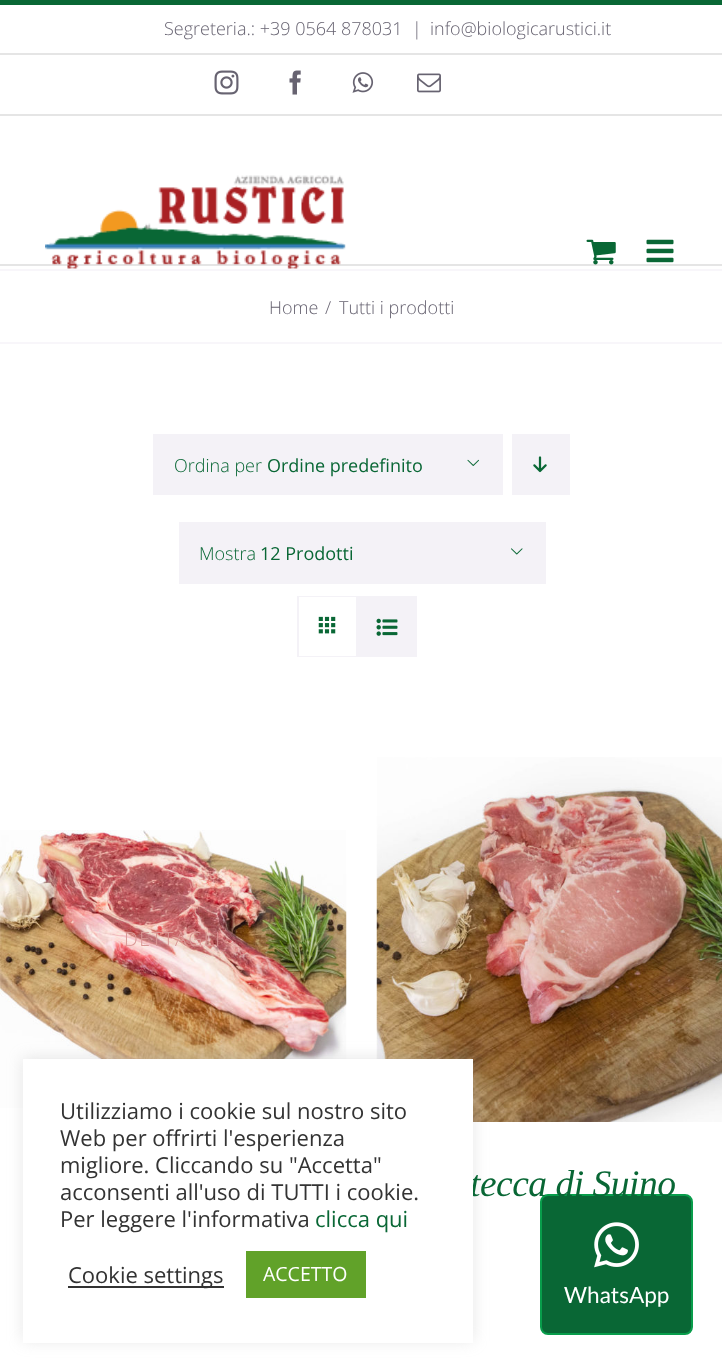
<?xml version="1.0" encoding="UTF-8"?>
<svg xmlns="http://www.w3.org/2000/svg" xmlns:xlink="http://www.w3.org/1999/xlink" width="722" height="1365">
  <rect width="100%" height="100%" fill="#ffffff" />
  <rect width="722" height="5" fill="#096735" />
  <rect y="114" width="722" height="2" fill="#e5e5e5" />
  <rect y="53" width="722" height="2" fill="#e5e5e5" />
  <image x="214" y="70" width="25" height="25" xlink:href="image1.png" />
  <image x="289" y="70" width="12" height="25" xlink:href="image2.png" />
  <image x="352" y="72" width="22" height="21" xlink:href="image3.png" />
  <image x="417" y="73" width="24" height="20" xlink:href="image4.png" />
  <rect y="264" width="722" height="2" fill="#e5e5e5" />
  <image x="45" y="175" width="301" height="94" xlink:href="image5.png" />
  <image x="586" y="239" width="30" height="26" xlink:href="image6.png" />
  <image x="646" y="239" width="28" height="24" xlink:href="image7.png" />
  <rect y="269" width="722" height="2" fill="#f8f6fa" />
  <rect y="342" width="722" height="2" fill="#f8f6fa" />
  <rect x="153" y="434" width="350" height="61" fill="#f4f2f7" />
  <image x="467" y="459" width="12" height="7" xlink:href="image8.png" />
  <rect x="512" y="434" width="58" height="61" fill="#f4f2f7" />
  <image x="533" y="456" width="14" height="17" xlink:href="image9.png" />
  <rect x="179" y="522" width="367" height="62" fill="#f4f2f7" />
  <image x="511" y="548" width="12" height="7" xlink:href="image10.png" />
  <rect x="298" y="597" width="118" height="59" fill="none" stroke="#f4f2f7" stroke-width="2" />
  <rect x="299" y="597" width="57" height="59" fill="#ffffff" />
  <rect x="356" y="597" width="1" height="59" fill="#f4f2f7" />
  <image x="318" y="616" width="18" height="18" xlink:href="image11.png" />
  <rect x="357" y="598" width="58" height="57" fill="#f4f2f7" />
  <image x="376" y="618" width="22" height="18" xlink:href="image12.png" />
  <image x="0" y="830" width="347" height="278" xlink:href="image13.png" />
  <image x="376" y="757" width="346" height="365" xlink:href="image14.png" />
  <rect x="23" y="1058" width="450" height="283" fill="#acabab" fill-opacity="0.3" filter="blur(7.5px)" />
  <rect x="541" y="1195" width="151" height="139" rx="7" fill="#096735" stroke="#089d4b" stroke-width="2" />
  <image x="594" y="1222" width="45" height="46" xlink:href="image15.png" />
  <text x="164" y="35" style="font-family: Open Sans; font-size: 18px; font-weight: 300; fill: #676371">Segreteria.: +39 0564 878031</text>
  <text x="412" y="35" style="font-family: Open Sans; font-size: 18px; font-weight: 300; fill: #676371">|</text>
  <text x="430" y="35" style="font-family: Open Sans; font-size: 18px; font-weight: 300; fill: #676371">info@biologicarustici.it</text>
  <text x="269" y="314" style="font-family: Open Sans; font-size: 18px; font-weight: 300; fill: #676371">Home</text>
  <text x="325" y="314" style="font-family: Open Sans; font-size: 18px; font-weight: 300; fill: #676371">/</text>
  <text x="339" y="314" style="font-family: Open Sans; font-size: 18px; font-weight: 300; fill: #676371">Tutti i prodotti</text>
  <text x="174" y="472" style="font-family: Open Sans; font-size: 18px; font-weight: 300; fill: #096735">Ordina per</text>
  <text x="267" y="472" style="font-family: Open Sans; font-size: 18px; fill: #096735">Ordine predefinito</text>
  <text x="199" y="560" style="font-family: Open Sans; font-size: 18px; font-weight: 300; fill: #096735">Mostra</text>
  <text x="260" y="560" style="font-family: Open Sans; font-size: 18px; fill: #096735">12 Prodotti</text>
  <text x="124" y="946" style="font-family: Open Sans; font-size: 19.5px; font-weight: 300; letter-spacing: 1.5px; fill: #d99895">DETTAGLI</text>
  <text x="470" y="1196" style="font-family: Liberation Serif; font-size: 37.5px; font-style: italic; letter-spacing: -0.5px; fill: #096735">tecca di Suino</text>
  <rect x="23" y="1059" width="450" height="284" fill="#ffffff" />
  <text x="60" y="1119" style="font-family: Open Sans; font-size: 22px; fill: #333333">Utilizziamo i cookie sul nostro sito</text>
  <text x="60" y="1146" style="font-family: Open Sans; font-size: 22px; fill: #333333">Web per offrirti l'esperienza</text>
  <text x="60" y="1173" style="font-family: Open Sans; font-size: 22px; fill: #333333">migliore. Cliccando su "Accetta"</text>
  <text x="60" y="1200" style="font-family: Open Sans; font-size: 22px; fill: #333333">acconsenti all'uso di TUTTI i cookie.</text>
  <text x="60" y="1227" style="font-family: Open Sans; font-size: 22px; fill: #333333">Per leggere l'informativa</text>
  <text x="315" y="1227" style="font-family: Open Sans; font-size: 22px; fill: #096735">clicca qui</text>
  <rect x="68" y="1286" width="156" height="2" fill="#333333" />
  <text x="68" y="1283" style="font-family: Open Sans; font-size: 22px; fill: #333333">Cookie settings</text>
  <rect x="246" y="1251" width="120" height="47" fill="#61a229" />
  <text x="263" y="1281" style="font-family: Open Sans; font-size: 19.5px; fill: #ffffff">ACCETTO</text>
  <text x="564" y="1303" style="font-family: Lato; font-size: 22.5px; fill: #ffffff">WhatsApp</text>
</svg>
